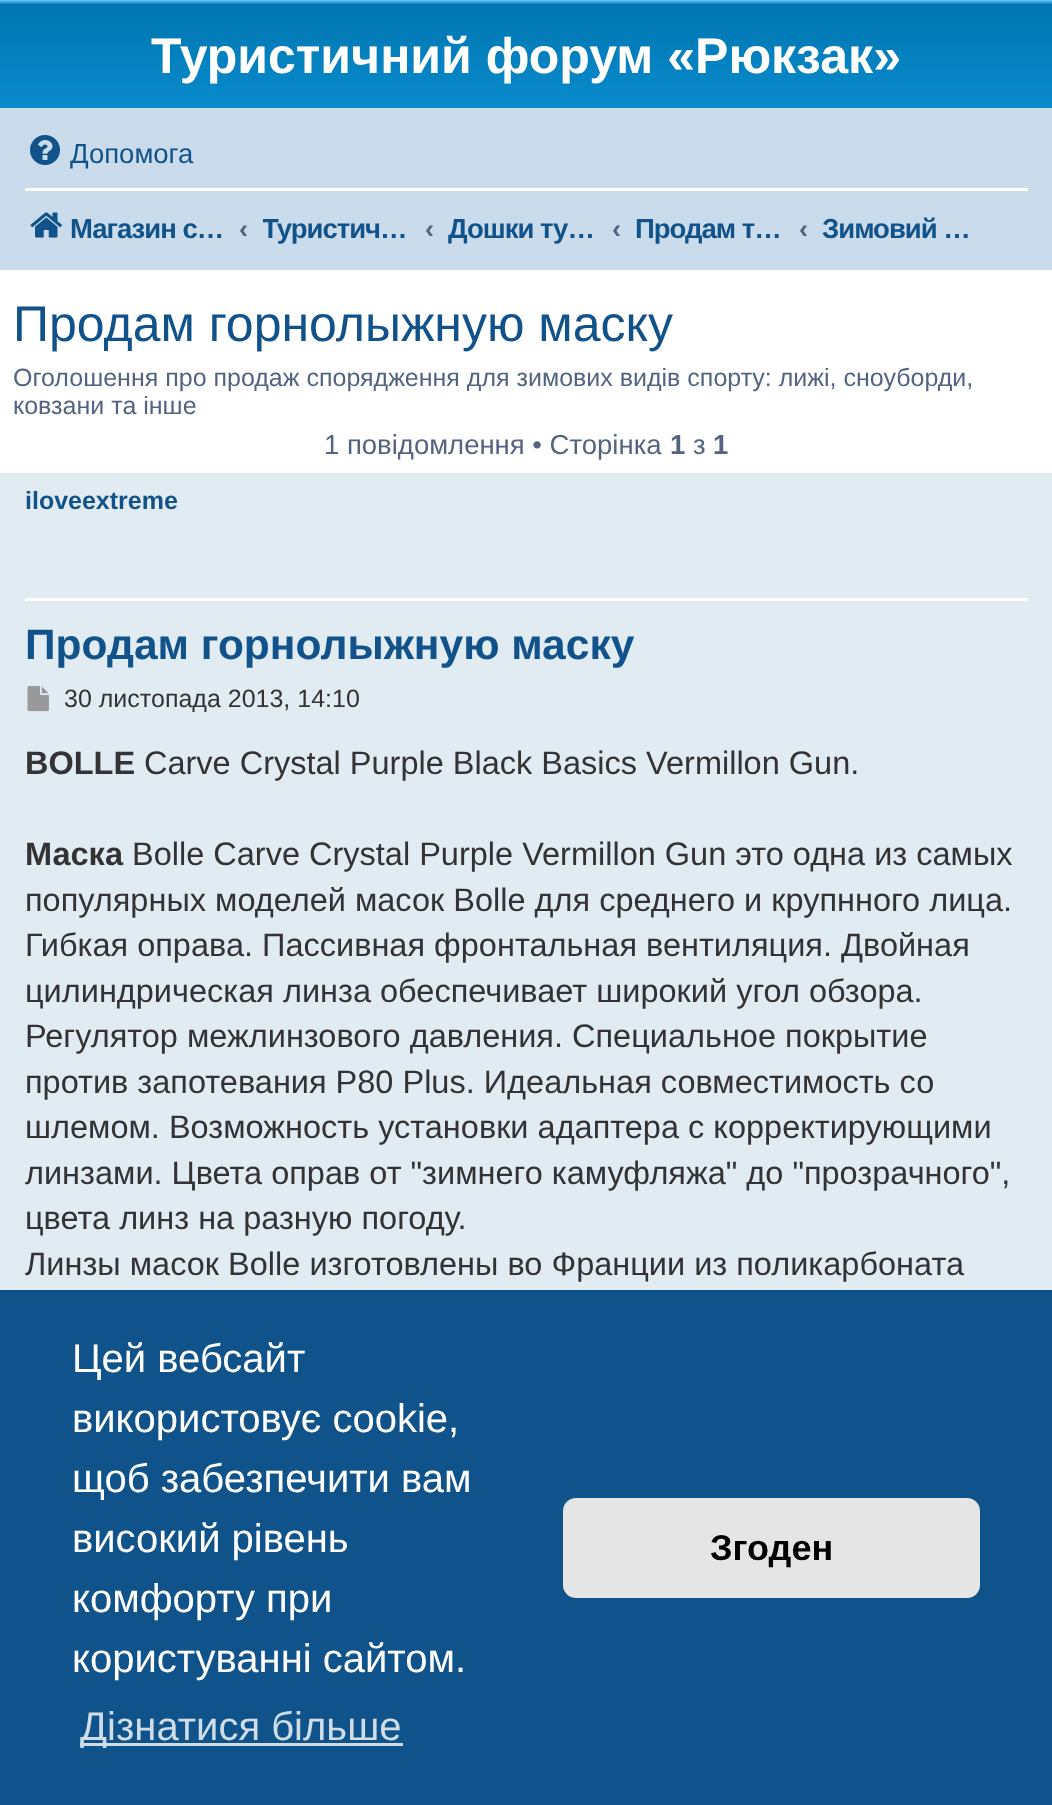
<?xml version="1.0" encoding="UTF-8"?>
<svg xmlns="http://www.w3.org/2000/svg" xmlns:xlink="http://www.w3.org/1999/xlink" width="1052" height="1805">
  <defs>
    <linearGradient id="g1" gradientUnits="userSpaceOnUse" x1="526" y1="0" x2="526" y2="230"><stop offset="0" stop-color="#6aceff" /><stop offset="0.02" stop-color="#0076b1" /><stop offset="1" stop-color="#12a3eb" /></linearGradient>
    <clipPath id="clip1"><rect x="263" y="198" width="150" height="60" /></clipPath>
  </defs>
  <rect width="100%" height="100%" fill="#ffffff" />
  <rect width="1052" height="108" fill="url(#g1)" />
  <rect y="108" width="1052" height="162" fill="#cadceb" />
  <image x="30" y="135" width="30" height="30" xlink:href="image1.png" />
  <rect x="25" y="188" width="1003" height="3" fill="#ffffff" />
  <image x="30" y="212" width="32" height="26" xlink:href="image2.png" />
  <rect y="473" width="1052" height="817" fill="#e1ebf2" />
  <rect x="25" y="598" width="1003" height="3" fill="#ffffff" />
  <image x="27" y="686" width="22" height="26" xlink:href="image3.png" />
  <rect y="1290" width="1052" height="515" fill="#0f538a" />
  <rect x="80" y="1743" width="323" height="3" fill="#cfdde8" />
  <rect x="563" y="1498" width="417" height="100" rx="13" fill="#e5e5e5" />
  <text x="151" y="73" style="font-family: Liberation Sans; font-size: 50px; font-weight: bold; fill: #ffffff">Туристичний форум «Рюкзак»</text>
  <text x="70" y="163" style="font-family: Liberation Sans; font-size: 27.5px; fill: #105289">Допомога</text>
  <text x="70" y="238" style="font-family: Liberation Sans; font-size: 27.5px; font-weight: bold; letter-spacing: -1px; fill: #105289">Магазин с…</text>
  <text x="239" y="238" style="font-family: Liberation Sans; font-size: 27.5px; font-weight: bold; fill: #536482">‹</text>
  <g clip-path="url(#clip1)">
    <text x="262" y="238" style="font-family: Liberation Sans; font-size: 27.5px; font-weight: bold; letter-spacing: -1px; fill: #105289">Туристич…</text>
  </g>
  <text x="425" y="238" style="font-family: Liberation Sans; font-size: 27.5px; font-weight: bold; fill: #536482">‹</text>
  <text x="448" y="238" style="font-family: Liberation Sans; font-size: 27.5px; font-weight: bold; letter-spacing: -1px; fill: #105289">Дошки ту…</text>
  <text x="612" y="238" style="font-family: Liberation Sans; font-size: 27.5px; font-weight: bold; fill: #536482">‹</text>
  <text x="635" y="238" style="font-family: Liberation Sans; font-size: 27.5px; font-weight: bold; letter-spacing: -1px; fill: #105289">Продам т…</text>
  <text x="799" y="238" style="font-family: Liberation Sans; font-size: 27.5px; font-weight: bold; fill: #536482">‹</text>
  <text x="822" y="238" style="font-family: Liberation Sans; font-size: 27.5px; font-weight: bold; letter-spacing: -1px; fill: #105289">Зимовий …</text>
  <text x="13" y="341" style="font-family: Liberation Sans; font-size: 50px; fill: #105289">Продам горнолыжную маску</text>
  <text x="13" y="386" style="font-family: Liberation Sans; font-size: 25px; fill: #536482">Оголошення про продаж спорядження для зимових видів спорту: лижі, сноуборди,</text>
  <text x="13" y="414" style="font-family: Liberation Sans; font-size: 25px; fill: #536482">ковзани та інше</text>
  <text x="324" y="454" style="font-family: Liberation Sans; font-size: 27.5px; fill: #536482">1 повідомлення • Сторінка</text>
  <text x="670" y="454" style="font-family: Liberation Sans; font-size: 27.5px; font-weight: bold; fill: #536482">1</text>
  <text x="693" y="454" style="font-family: Liberation Sans; font-size: 27.5px; fill: #536482">з</text>
  <text x="713" y="454" style="font-family: Liberation Sans; font-size: 27.5px; font-weight: bold; fill: #536482">1</text>
  <text x="25" y="509" style="font-family: Liberation Sans; font-size: 25px; font-weight: bold; fill: #105289">iloveextreme</text>
  <text x="25" y="659" style="font-family: Liberation Sans; font-size: 42.5px; font-weight: bold; fill: #105289">Продам горнолыжную маску</text>
  <text x="64" y="707" style="font-family: Liberation Sans; font-size: 25px; fill: #333333">30 листопада 2013, 14:10</text>
  <text x="25" y="774" style="font-family: Liberation Sans; font-size: 32.5px; font-weight: bold; fill: #333333">BOLLE</text>
  <text x="144" y="774" style="font-family: Liberation Sans; font-size: 32.5px; fill: #333333">Carve Crystal Purple Black Basics Vermillon Gun.</text>
  <text x="25" y="865" style="font-family: Liberation Sans; font-size: 32.5px; font-weight: bold; fill: #333333">Маска</text>
  <text x="132" y="865" style="font-family: Liberation Sans; font-size: 32.5px; fill: #333333">Bolle Carve Crystal Purple Vermillon Gun это одна из самых</text>
  <text x="25" y="911" style="font-family: Liberation Sans; font-size: 32.5px; fill: #333333">популярных моделей масок Bolle для среднего и крупнного лица.</text>
  <text x="25" y="956" style="font-family: Liberation Sans; font-size: 32.5px; fill: #333333">Гибкая оправа. Пассивная фронтальная вентиляция. Двойная</text>
  <text x="25" y="1002" style="font-family: Liberation Sans; font-size: 32.5px; fill: #333333">цилиндрическая линза обеспечивает широкий угол обзора.</text>
  <text x="25" y="1047" style="font-family: Liberation Sans; font-size: 32.5px; fill: #333333">Регулятор межлинзового давления. Специальное покрытие</text>
  <text x="25" y="1093" style="font-family: Liberation Sans; font-size: 32.5px; fill: #333333">против запотевания P80 Plus. Идеальная совместимость со</text>
  <text x="25" y="1138" style="font-family: Liberation Sans; font-size: 32.5px; fill: #333333">шлемом. Возможность установки адаптера с корректирующими</text>
  <text x="25" y="1184" style="font-family: Liberation Sans; font-size: 32.5px; fill: #333333">линзами. Цвета оправ от "зимнего камуфляжа" до "прозрачного",</text>
  <text x="25" y="1229" style="font-family: Liberation Sans; font-size: 32.5px; fill: #333333">цвета линз на разную погоду.</text>
  <text x="25" y="1275" style="font-family: Liberation Sans; font-size: 32.5px; fill: #333333">Линзы масок Bolle изготовлены во Франции из поликарбоната</text>
  <text x="72" y="1372" style="font-family: Liberation Sans; font-size: 40px; fill: #ffffff">Цей вебсайт</text>
  <text x="72" y="1432" style="font-family: Liberation Sans; font-size: 40px; fill: #ffffff">використовує cookie,</text>
  <text x="72" y="1492" style="font-family: Liberation Sans; font-size: 40px; fill: #ffffff">щоб забезпечити вам</text>
  <text x="72" y="1552" style="font-family: Liberation Sans; font-size: 40px; fill: #ffffff">високий рівень</text>
  <text x="72" y="1612" style="font-family: Liberation Sans; font-size: 40px; fill: #ffffff">комфорту при</text>
  <text x="72" y="1672" style="font-family: Liberation Sans; font-size: 40px; fill: #ffffff">користуванні сайтом.</text>
  <text x="80" y="1740" style="font-family: Liberation Sans; font-size: 40px; fill: #cfdde8">Дізнатися більше</text>
  <text x="710" y="1560" style="font-family: Liberation Sans; font-size: 36px; font-weight: bold; fill: #000000">Згоден</text>
</svg>
